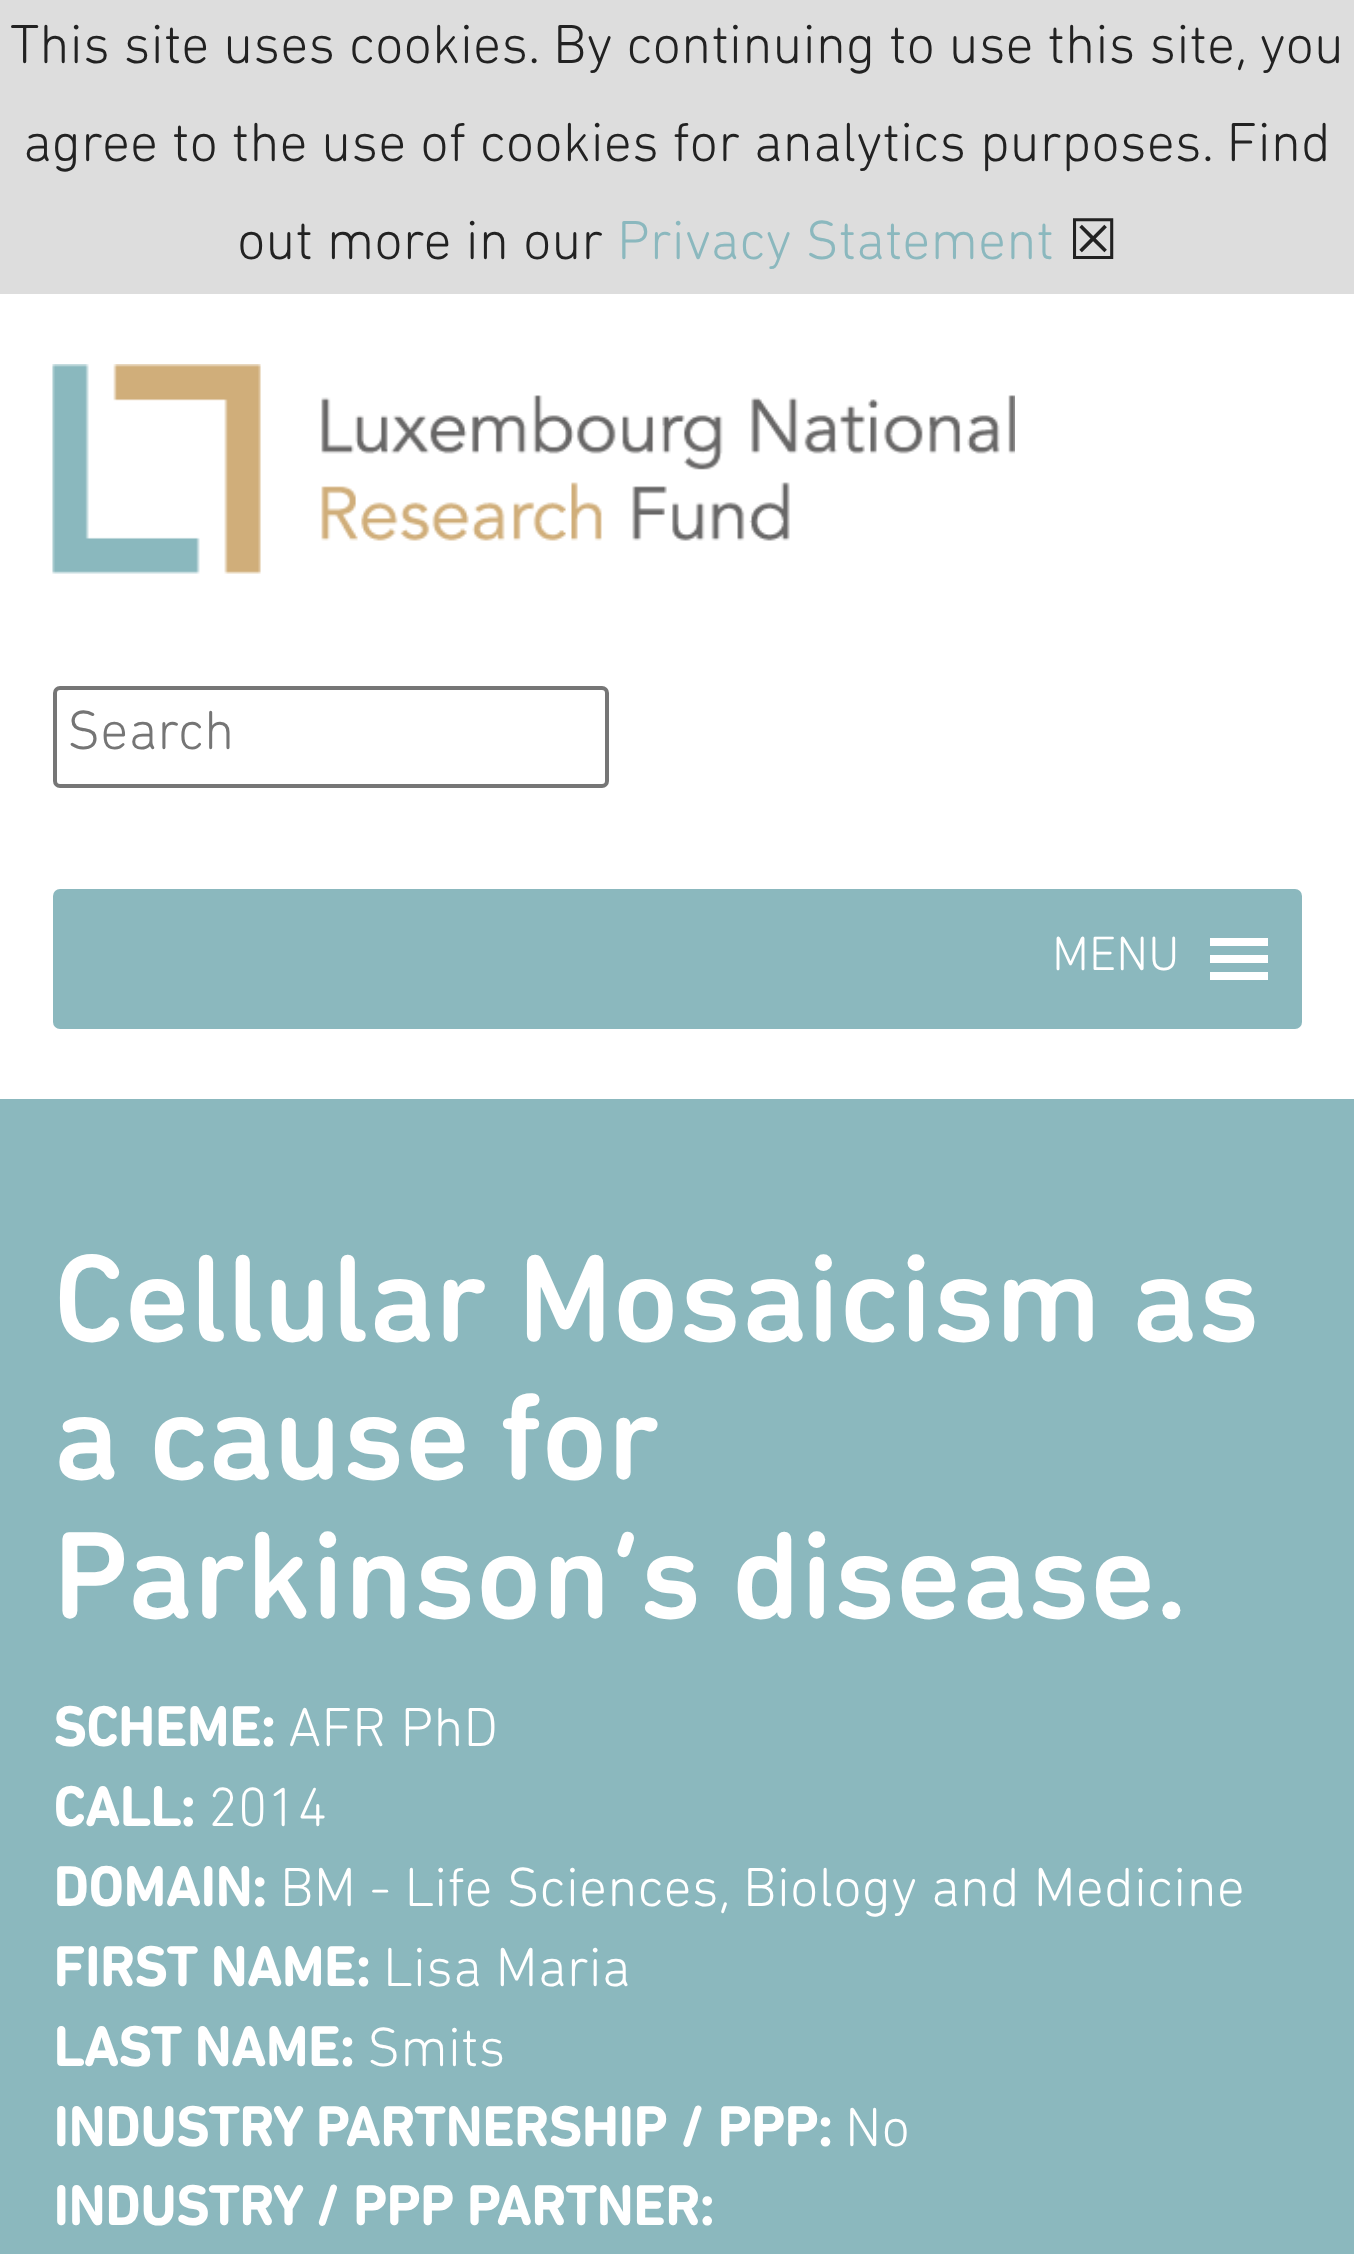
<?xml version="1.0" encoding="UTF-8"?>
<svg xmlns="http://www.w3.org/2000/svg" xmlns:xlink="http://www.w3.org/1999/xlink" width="1354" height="2254">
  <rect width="100%" height="100%" fill="#ffffff" />
  <rect width="1354" height="294" fill="#dddddd" />
  <image x="52" y="364" width="963" height="210" xlink:href="image1.png" />
  <rect x="55" y="688" width="552" height="98" rx="5" fill="none" stroke="#767676" stroke-width="4" />
  <rect x="53" y="889" width="1249" height="140" rx="7" fill="#8bb8be" />
  <path d="M 1210 980 h 58 v -8 h -58 z m 0 -42 v 8 h 58 v -8 z m 0 25 h 58 v -8 h -58 z" fill="#ffffff" />
  <rect y="1099" width="1354" height="1155" fill="#8bb8be" />
  <text x="10" y="63" style="font-family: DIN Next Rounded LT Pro; font-size: 56px; font-weight: 300; fill: #222222">This site uses cookies. By continuing to use this site, you</text>
  <text x="23" y="161" style="font-family: DIN Next Rounded LT Pro; font-size: 56px; font-weight: 300; fill: #222222">agree to the use of cookies for analytics purposes. Find</text>
  <text x="237" y="259" style="font-family: DIN Next Rounded LT Pro; font-size: 56px; font-weight: 300; fill: #222222">out more in our</text>
  <text x="617" y="259" style="font-family: DIN Next Rounded LT Pro; font-size: 56px; font-weight: 300; fill: #8bb8be">Privacy Statement</text>
  <text x="1068" y="259" style="font-family: DejaVu Sans; font-size: 56px; fill: #222222">☒</text>
  <text x="67" y="749" style="font-family: DIN Next Rounded LT Pro; font-size: 56px; font-weight: 300; fill: #757575">Search</text>
  <text x="1052" y="970" style="font-family: DIN Next Rounded LT Pro; font-size: 49px; font-weight: 300; fill: #ffffff">MENU</text>
  <text x="53" y="1341" style="font-family: DIN Next Rounded LT Pro; font-size: 126px; font-weight: 500; fill: #ffffff">Cellular Mosaicism as</text>
  <text x="53" y="1479" style="font-family: DIN Next Rounded LT Pro; font-size: 126px; font-weight: 500; fill: #ffffff">a cause for</text>
  <text x="53" y="1618" style="font-family: DIN Next Rounded LT Pro; font-size: 126px; font-weight: 500; fill: #ffffff">Parkinson’s disease.</text>
  <text x="53" y="1746" style="font-family: DIN Next Rounded LT Pro; font-size: 56px; font-weight: bold; fill: #ffffff">SCHEME:</text>
  <text x="288" y="1746" style="font-family: DIN Next Rounded LT Pro; font-size: 56px; font-weight: 300; fill: #ffffff">AFR PhD</text>
  <text x="53" y="1826" style="font-family: DIN Next Rounded LT Pro; font-size: 56px; font-weight: bold; fill: #ffffff">CALL:</text>
  <text x="208" y="1826" style="font-family: DIN Next Rounded LT Pro; font-size: 56px; font-weight: 300; fill: #ffffff">2014</text>
  <text x="53" y="1906" style="font-family: DIN Next Rounded LT Pro; font-size: 56px; font-weight: bold; fill: #ffffff">DOMAIN:</text>
  <text x="280" y="1906" style="font-family: DIN Next Rounded LT Pro; font-size: 56px; font-weight: 300; fill: #ffffff">BM - Life Sciences, Biology and Medicine</text>
  <text x="53" y="1986" style="font-family: DIN Next Rounded LT Pro; font-size: 56px; font-weight: bold; fill: #ffffff">FIRST NAME:</text>
  <text x="383" y="1986" style="font-family: DIN Next Rounded LT Pro; font-size: 56px; font-weight: 300; fill: #ffffff">Lisa Maria</text>
  <text x="53" y="2066" style="font-family: DIN Next Rounded LT Pro; font-size: 56px; font-weight: bold; fill: #ffffff">LAST NAME:</text>
  <text x="367" y="2066" style="font-family: DIN Next Rounded LT Pro; font-size: 56px; font-weight: 300; fill: #ffffff">Smits</text>
  <text x="53" y="2146" style="font-family: DIN Next Rounded LT Pro; font-size: 56px; font-weight: bold; fill: #ffffff">INDUSTRY PARTNERSHIP / PPP:</text>
  <text x="845" y="2146" style="font-family: DIN Next Rounded LT Pro; font-size: 56px; font-weight: 300; fill: #ffffff">No</text>
  <text x="53" y="2225" style="font-family: DIN Next Rounded LT Pro; font-size: 56px; font-weight: bold; fill: #ffffff">INDUSTRY / PPP PARTNER:</text>
</svg>
